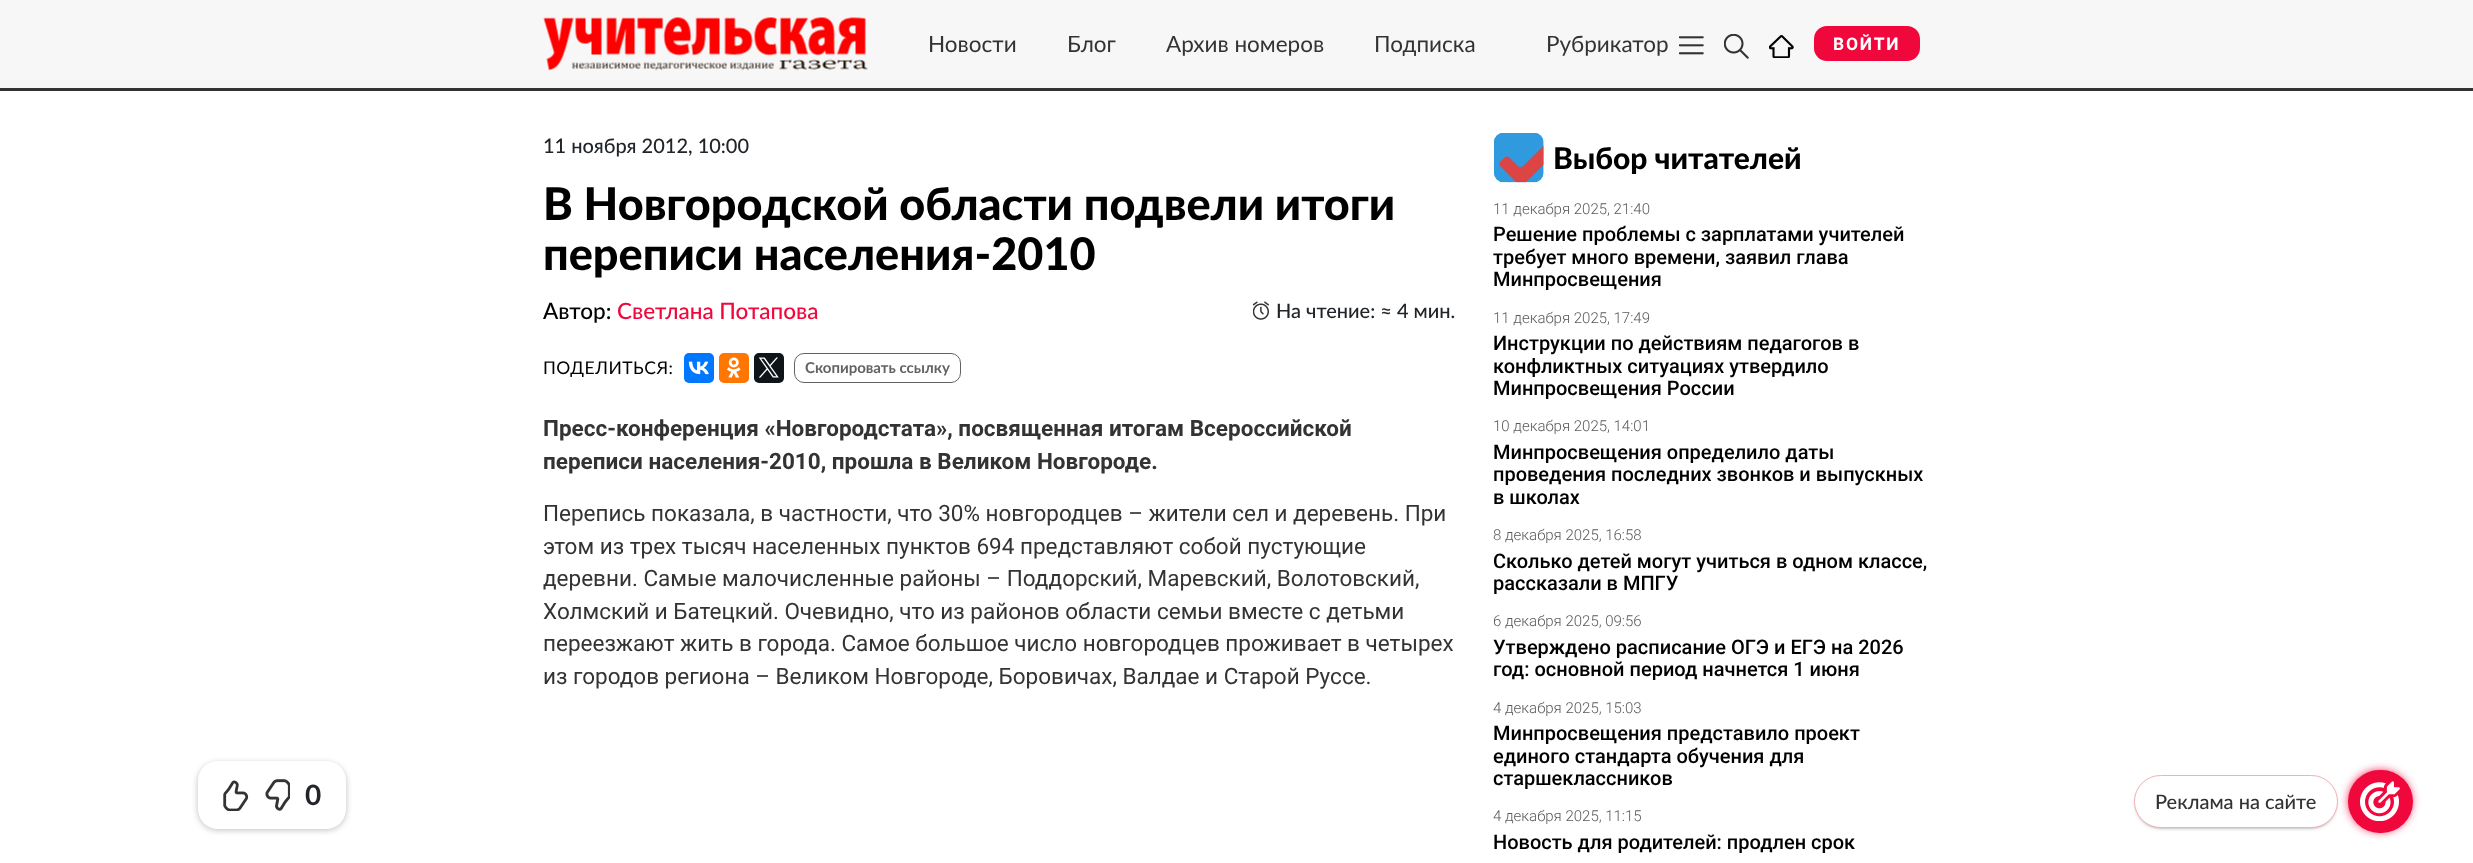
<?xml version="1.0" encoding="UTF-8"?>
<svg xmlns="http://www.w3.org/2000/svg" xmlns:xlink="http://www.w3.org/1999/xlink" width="2473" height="863">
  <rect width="100%" height="100%" fill="#ffffff" />
  <rect width="2473" height="88" fill="#f7f7f7" />
  <rect y="88" width="2473" height="3" fill="#333333" />
  <image x="543" y="17" width="325" height="54" xlink:href="image1.png" />
  <image x="1679" y="36" width="25" height="19" xlink:href="image2.png" />
  <image x="1724" y="34" width="25" height="25" xlink:href="image3.png" />
  <image x="1769" y="35" width="25" height="23" xlink:href="image4.png" />
  <rect x="1814" y="26" width="106" height="35" rx="13" fill="#f0073b" />
  <rect x="198" y="763" width="148" height="67" rx="20" fill="#000000" fill-opacity="0.25" filter="blur(3px)" />
  <rect x="198" y="761" width="148" height="68" rx="20" fill="#ffffff" />
  <image x="223" y="780" width="26" height="31" xlink:href="image5.png" />
  <image x="265" y="779" width="25" height="32" xlink:href="image6.png" />
  <image x="1253" y="301" width="16" height="19" xlink:href="image7.png" />
  <rect x="684" y="353" width="30" height="30" rx="5" fill="#0077ff" />
  <image x="688" y="361" width="21" height="14" xlink:href="image8.png" />
  <rect x="719" y="353" width="30" height="30" rx="5" fill="#ff7700" />
  <image x="727" y="357" width="14" height="21" xlink:href="image9.png" />
  <rect x="754" y="353" width="30" height="30" rx="5" fill="#0f1419" />
  <image x="758" y="357" width="21" height="21" xlink:href="image10.png" />
  <rect x="794.5" y="353.5" width="166" height="29" rx="9.5" fill="none" stroke="#626262" />
  <image x="1494" y="133" width="50" height="50" xlink:href="image11.png" />
  <rect x="2349" y="771" width="62" height="60" rx="30" fill="#f0073b" filter="blur(5px)" />
  <rect x="2348" y="770" width="65" height="63" rx="31.5" fill="#f0073b" />
  <rect x="2138" y="781" width="196" height="45" rx="22.5" fill="#000000" filter="blur(2.5px)" />
  <rect x="2134.5" y="775.5" width="203" height="52" rx="26" fill="#ffffff" stroke="#f5afaf" />
  <image x="2360" y="781" width="40" height="40" xlink:href="image12.png" />
  <text x="928" y="52" style="font-family: Lato; font-size: 22.5px; fill: #333333">Новости</text>
  <text x="1067" y="52" style="font-family: Lato; font-size: 22.5px; fill: #333333">Блог</text>
  <text x="1166" y="52" style="font-family: Lato; font-size: 22.5px; fill: #333333">Архив номеров</text>
  <text x="1374" y="52" style="font-family: Lato; font-size: 22.5px; fill: #333333">Подписка</text>
  <text x="1546" y="52" style="font-family: Lato; font-size: 22.5px; fill: #333333">Рубрикатор</text>
  <text x="1833" y="50" style="font-family: Roboto; font-size: 17.5px; font-weight: bold; letter-spacing: 1.75px; fill: #ffffff">ВОЙТИ</text>
  <text x="305" y="805" style="font-family: Lato; font-size: 28px; font-weight: bold; fill: #212529">0</text>
  <text x="543" y="153" style="font-family: Lato; font-size: 20px; font-weight: 500; fill: #212529">11 ноября 2012, 10:00</text>
  <text x="543" y="220" style="font-family: Lato; font-size: 45px; font-weight: 800; fill: #000000">В Новгородской области подвели итоги</text>
  <text x="543" y="270" style="font-family: Lato; font-size: 45px; font-weight: 800; fill: #000000">переписи населения-2010</text>
  <text x="543" y="319" style="font-family: Lato; font-size: 22.5px; font-weight: 500; fill: #000000">Автор:</text>
  <text x="617" y="319" style="font-family: Lato; font-size: 22.5px; font-weight: 500; fill: #f0073b">Светлана Потапова</text>
  <text x="1276" y="318" style="font-family: Lato; font-size: 20px; font-weight: 500; fill: #212529">На чтение: ≈ 4 мин.</text>
  <text x="543" y="374" style="font-family: Lato; font-size: 17.5px; letter-spacing: 0.5px; fill: #000000">ПОДЕЛИТЬСЯ:</text>
  <text x="805" y="373" style="font-family: Lato; font-size: 15px; font-weight: bold; fill: #626262">Скопировать ссылку</text>
  <text x="543" y="436" style="font-family: Roboto; font-size: 22.5px; font-weight: bold; fill: #333333">Пресс-конференция «Новгородстата», посвященная итогам Всероссийской</text>
  <text x="543" y="469" style="font-family: Roboto; font-size: 22.5px; font-weight: bold; fill: #333333">переписи населения-2010, прошла в Великом Новгороде.</text>
  <text x="543" y="521" style="font-family: Roboto; font-size: 22.5px; fill: #333333">Перепись показала, в частности, что 30% новгородцев – жители сел и деревень. При</text>
  <text x="543" y="554" style="font-family: Roboto; font-size: 22.5px; fill: #333333">этом из трех тысяч населенных пунктов 694 представляют собой пустующие</text>
  <text x="543" y="586" style="font-family: Roboto; font-size: 22.5px; fill: #333333">деревни. Самые малочисленные районы – Поддорский, Маревский, Волотовский,</text>
  <text x="543" y="619" style="font-family: Roboto; font-size: 22.5px; fill: #333333">Холмский и Батецкий. Очевидно, что из районов области семьи вместе с детьми</text>
  <text x="543" y="651" style="font-family: Roboto; font-size: 22.5px; fill: #333333">переезжают жить в города. Самое большое число новгородцев проживает в четырех</text>
  <text x="543" y="684" style="font-family: Roboto; font-size: 22.5px; fill: #333333">из городов региона – Великом Новгороде, Боровичах, Валдае и Старой Руссе.</text>
  <text x="1553" y="169" style="font-family: Lato; font-size: 30px; font-weight: 800; fill: #000000">Выбор читателей</text>
  <text x="1493" y="214" style="font-family: Roboto; font-size: 15px; font-weight: 300; fill: #5a5a5a">11 декабря 2025, 21:40</text>
  <text x="1493" y="241" style="font-family: Roboto; font-size: 20px; font-weight: 500; fill: #000000">Решение проблемы с зарплатами учителей</text>
  <text x="1493" y="264" style="font-family: Roboto; font-size: 20px; font-weight: 500; fill: #000000">требует много времени, заявил глава</text>
  <text x="1493" y="286" style="font-family: Roboto; font-size: 20px; font-weight: 500; fill: #000000">Минпросвещения</text>
  <text x="1493" y="323" style="font-family: Roboto; font-size: 15px; font-weight: 300; fill: #5a5a5a">11 декабря 2025, 17:49</text>
  <text x="1493" y="350" style="font-family: Roboto; font-size: 20px; font-weight: 500; fill: #000000">Инструкции по действиям педагогов в</text>
  <text x="1493" y="373" style="font-family: Roboto; font-size: 20px; font-weight: 500; fill: #000000">конфликтных ситуациях утвердило</text>
  <text x="1493" y="395" style="font-family: Roboto; font-size: 20px; font-weight: 500; fill: #000000">Минпросвещения России</text>
  <text x="1493" y="431" style="font-family: Roboto; font-size: 15px; font-weight: 300; fill: #5a5a5a">10 декабря 2025, 14:01</text>
  <text x="1493" y="459" style="font-family: Roboto; font-size: 20px; font-weight: 500; fill: #000000">Минпросвещения определило даты</text>
  <text x="1493" y="481" style="font-family: Roboto; font-size: 20px; font-weight: 500; fill: #000000">проведения последних звонков и выпускных</text>
  <text x="1493" y="504" style="font-family: Roboto; font-size: 20px; font-weight: 500; fill: #000000">в школах</text>
  <text x="1493" y="540" style="font-family: Roboto; font-size: 15px; font-weight: 300; fill: #5a5a5a">8 декабря 2025, 16:58</text>
  <text x="1493" y="568" style="font-family: Roboto; font-size: 20px; font-weight: 500; fill: #000000">Сколько детей могут учиться в одном классе,</text>
  <text x="1493" y="590" style="font-family: Roboto; font-size: 20px; font-weight: 500; fill: #000000">рассказали в МПГУ</text>
  <text x="1493" y="626" style="font-family: Roboto; font-size: 15px; font-weight: 300; fill: #5a5a5a">6 декабря 2025, 09:56</text>
  <text x="1493" y="654" style="font-family: Roboto; font-size: 20px; font-weight: 500; fill: #000000">Утверждено расписание ОГЭ и ЕГЭ на 2026</text>
  <text x="1493" y="676" style="font-family: Roboto; font-size: 20px; font-weight: 500; fill: #000000">год: основной период начнется 1 июня</text>
  <text x="1493" y="713" style="font-family: Roboto; font-size: 15px; font-weight: 300; fill: #5a5a5a">4 декабря 2025, 15:03</text>
  <text x="1493" y="740" style="font-family: Roboto; font-size: 20px; font-weight: 500; fill: #000000">Минпросвещения представило проект</text>
  <text x="1493" y="763" style="font-family: Roboto; font-size: 20px; font-weight: 500; fill: #000000">единого стандарта обучения для</text>
  <text x="1493" y="785" style="font-family: Roboto; font-size: 20px; font-weight: 500; fill: #000000">старшеклассников</text>
  <text x="1493" y="821" style="font-family: Roboto; font-size: 15px; font-weight: 300; fill: #5a5a5a">4 декабря 2025, 11:15</text>
  <text x="1493" y="849" style="font-family: Roboto; font-size: 20px; font-weight: 500; fill: #000000">Новость для родителей: продлен срок</text>
  <text x="2155" y="809" style="font-family: Lato; font-size: 20px; font-weight: 500; fill: #333333">Реклама на сайте</text>
</svg>
